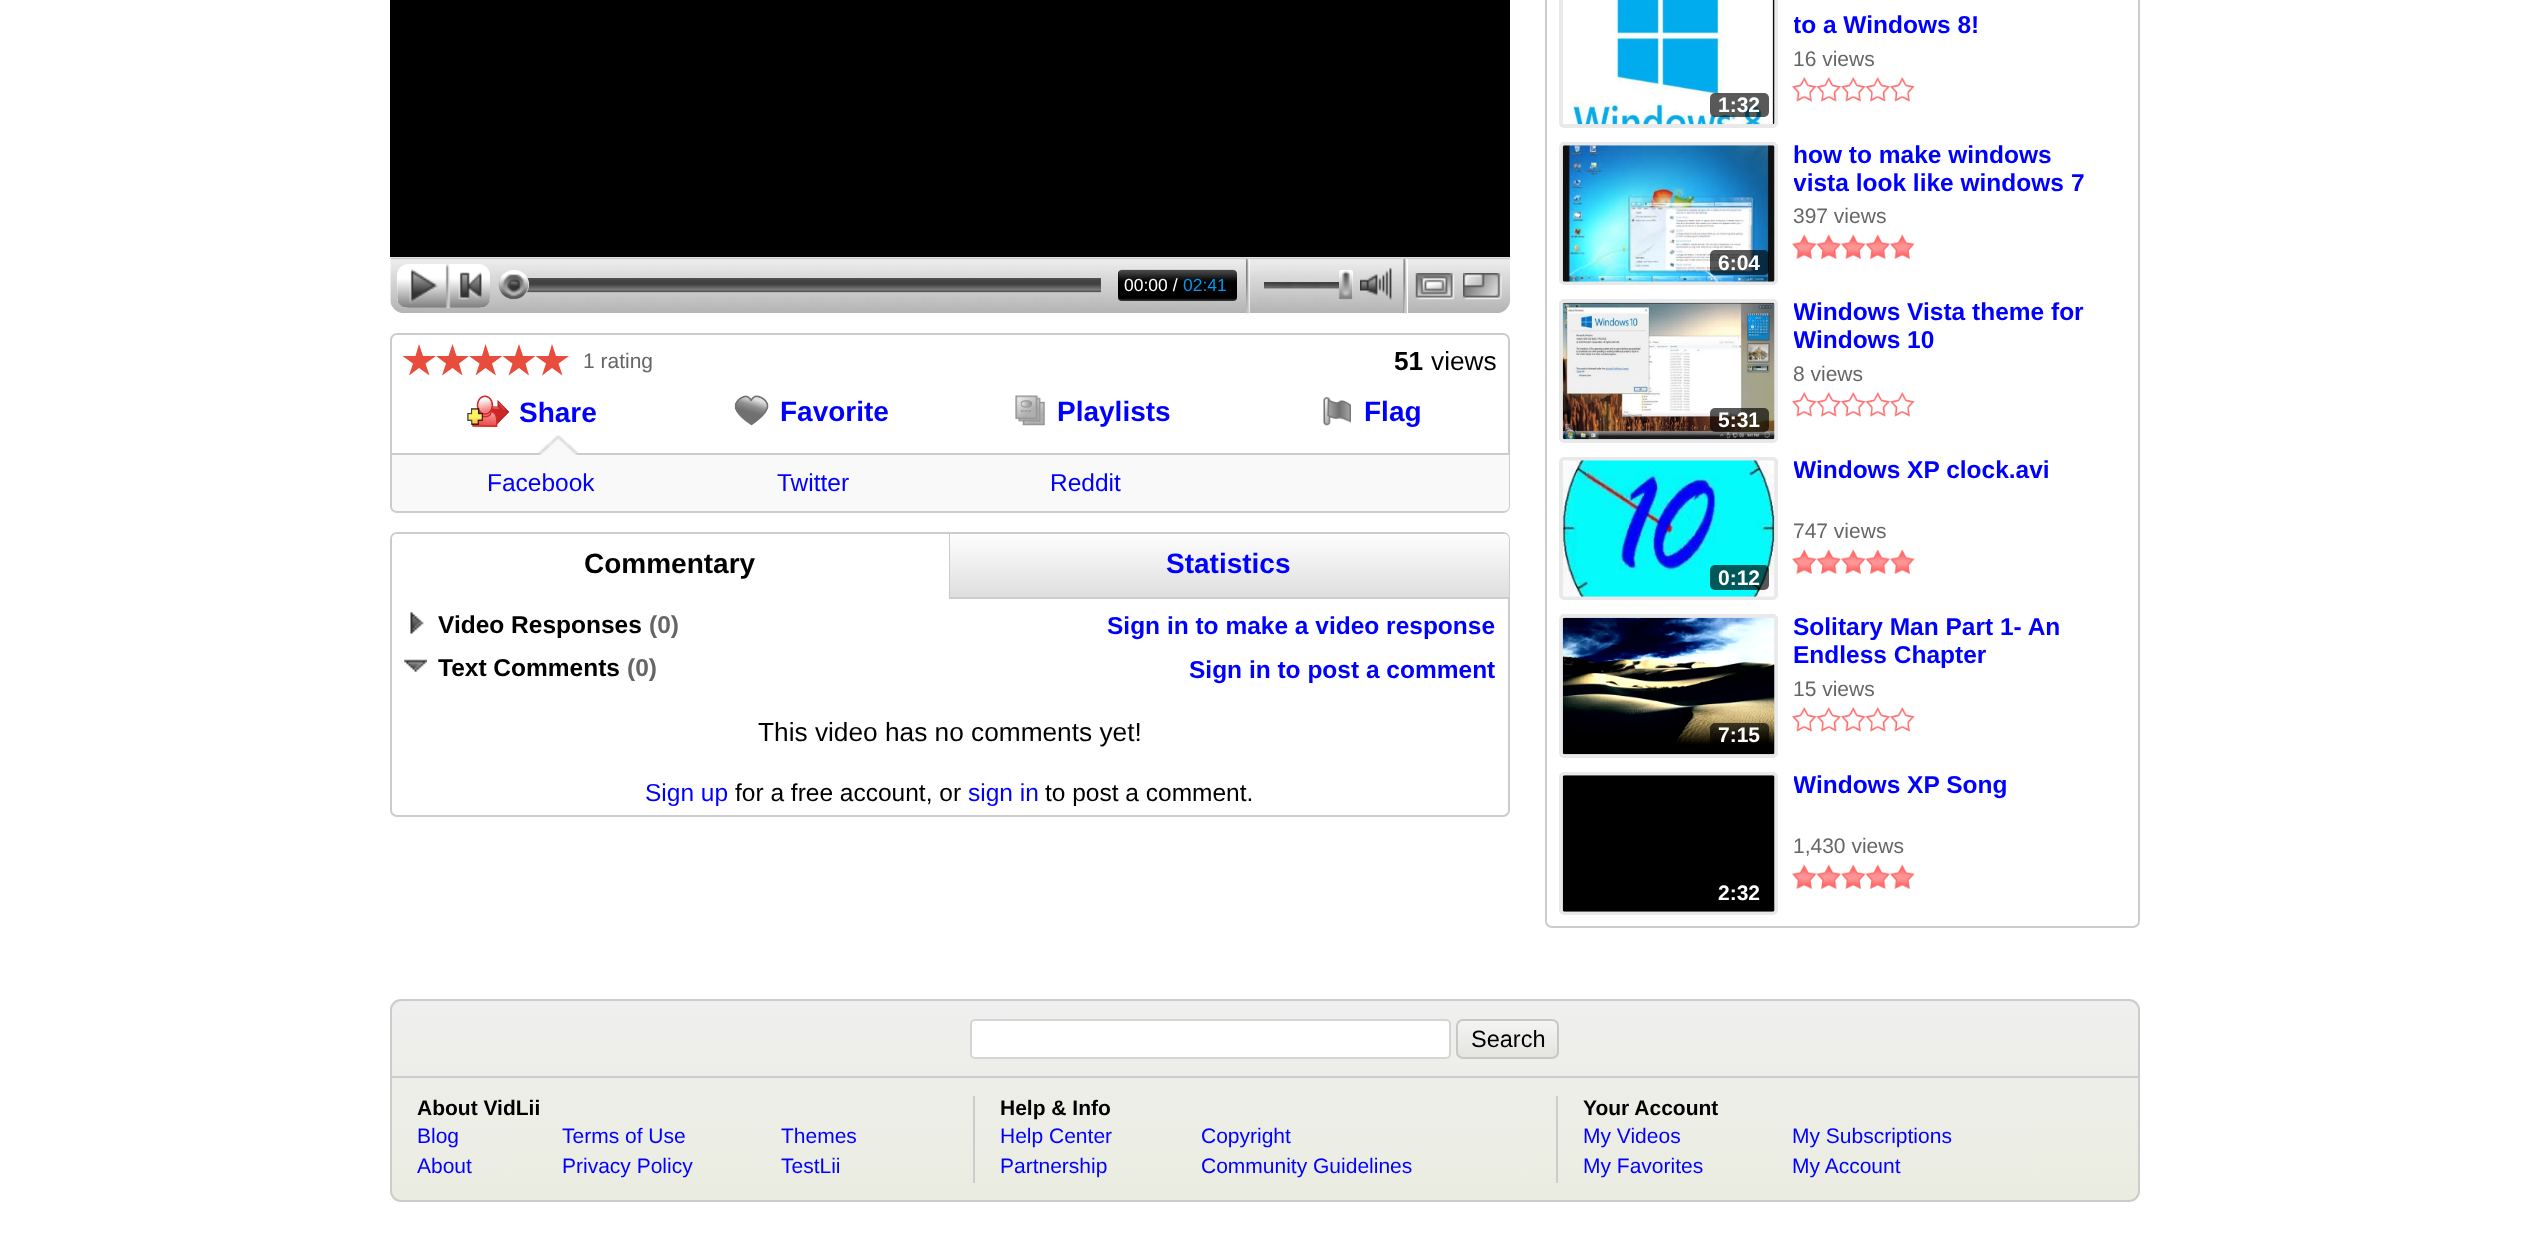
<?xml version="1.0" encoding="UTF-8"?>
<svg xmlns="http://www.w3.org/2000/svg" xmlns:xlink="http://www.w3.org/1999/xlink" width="2528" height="1236">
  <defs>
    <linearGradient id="g1" gradientUnits="userSpaceOnUse" x1="1229" y1="534" x2="1229" y2="597"><stop offset="0" stop-color="#fefefe" /><stop offset="1" stop-color="#dedede" /></linearGradient>
    <clipPath id="clip1"><rect x="390" y="999" width="1750" height="203" rx="11" /></clipPath>
    <linearGradient id="g2" gradientUnits="userSpaceOnUse" x1="1265" y1="1001" x2="1265" y2="1201"><stop offset="0" stop-color="#efefef" /><stop offset="1" stop-color="#ebece0" /></linearGradient>
    <clipPath id="clip2"><rect x="1456" y="1019" width="103" height="40" rx="7" /></clipPath>
    <linearGradient id="g3" gradientUnits="userSpaceOnUse" x1="1508" y1="1020" x2="1508" y2="1057"><stop offset="0" stop-color="#f4f4f4" /><stop offset="1" stop-color="#e4e5de" /></linearGradient>
    <clipPath id="clip3"><rect x="1794" width="297" height="42" /></clipPath>
    <clipPath id="clip4"><rect x="1794" y="142" width="297" height="58" /></clipPath>
    <clipPath id="clip5"><rect x="1794" y="299" width="297" height="58" /></clipPath>
    <clipPath id="clip6"><rect x="1794" y="457" width="297" height="58" /></clipPath>
    <clipPath id="clip7"><rect x="1794" y="772" width="297" height="58" /></clipPath>
  </defs>
  <rect width="100%" height="100%" fill="#ffffff" />
  <rect x="390" width="1120" height="257" fill="#000000" />
  <image x="390" y="257" width="1120" height="56" xlink:href="image1.png" />
  <path d="M 408 264 h 42 v 44 h -42 c -6 0 -11 -5 -11 -11 v -22 c 0 -6 5 -11 11 -11 z" fill="#ffffff" />
  <image x="397" y="264" width="53" height="44" xlink:href="image2.png" />
  <path d="M 450 264 h 29 c 6 0 11 5 11 11 v 22 c 0 6 -5 11 -11 11 h -29 z" fill="#ffffff" />
  <image x="449" y="272" width="41" height="36" xlink:href="image3.png" />
  <rect x="526" y="278" width="575" height="14" fill="#666666" />
  <image x="526" y="278" width="575" height="15" xlink:href="image4.png" />
  <rect x="499" y="270" width="30" height="29" rx="14.5" fill="#ffffff" />
  <image x="498" y="274" width="31" height="26" xlink:href="image5.png" />
  <rect x="1118" y="270" width="119" height="31" rx="4" fill="#000000" />
  <image x="1118" y="269" width="119" height="32" xlink:href="image6.png" />
  <rect x="1246" y="259" width="4" height="54" fill="#ffffff" />
  <image x="1246" y="259" width="4" height="55" xlink:href="image7.png" />
  <image x="1264" y="282" width="75" height="7" xlink:href="image8.png" />
  <rect x="1339" y="270" width="14" height="29" rx="2" fill="#ffffff" />
  <image x="1338" y="271" width="15" height="29" xlink:href="image9.png" />
  <image x="1360" y="268" width="32" height="32" xlink:href="image10.png" />
  <rect x="1404" y="259" width="4" height="54" fill="#ffffff" />
  <image x="1403" y="259" width="4" height="55" xlink:href="image11.png" />
  <image x="1415" y="273" width="40" height="27" xlink:href="image12.png" />
  <image x="1463" y="273" width="39" height="27" xlink:href="image13.png" />
  <rect x="1546" y="-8" width="593" height="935" rx="6" fill="none" stroke="#cccccc" stroke-width="2" />
  <image x="1792" y="77" width="25" height="25" xlink:href="image14.png" />
  <image x="1816" y="77" width="25" height="25" xlink:href="image15.png" />
  <image x="1841" y="77" width="25" height="25" xlink:href="image14.png" />
  <image x="1865" y="77" width="25" height="25" xlink:href="image15.png" />
  <image x="1890" y="77" width="25" height="25" xlink:href="image14.png" />
  <rect x="1561" y="-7" width="215" height="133" rx="3" fill="none" stroke="#e9e9e9" stroke-width="4" />
  <image x="1563" y="0" width="212" height="125" xlink:href="image16.png" />
  <rect x="1710" y="93" width="59" height="24" rx="5" fill="#000000" fill-opacity="0.65" />
  <image x="1792" y="234" width="25" height="25" xlink:href="image17.png" />
  <image x="1816" y="234" width="25" height="25" xlink:href="image18.png" />
  <image x="1841" y="234" width="25" height="25" xlink:href="image17.png" />
  <image x="1865" y="234" width="25" height="25" xlink:href="image18.png" />
  <image x="1890" y="234" width="25" height="25" xlink:href="image17.png" />
  <rect x="1561" y="144" width="215" height="139" rx="3" fill="none" stroke="#e9e9e9" stroke-width="4" />
  <image x="1562" y="145" width="213" height="137" xlink:href="image19.png" />
  <rect x="1710" y="250" width="59" height="25" rx="5" fill="#000000" fill-opacity="0.65" />
  <image x="1792" y="392" width="25" height="25" xlink:href="image14.png" />
  <image x="1816" y="392" width="25" height="25" xlink:href="image15.png" />
  <image x="1841" y="392" width="25" height="25" xlink:href="image14.png" />
  <image x="1865" y="392" width="25" height="25" xlink:href="image15.png" />
  <image x="1890" y="392" width="25" height="25" xlink:href="image14.png" />
  <rect x="1561" y="301" width="215" height="140" rx="3" fill="none" stroke="#e9e9e9" stroke-width="4" />
  <image x="1562" y="302" width="213" height="138" xlink:href="image20.png" />
  <rect x="1710" y="408" width="59" height="24" rx="5" fill="#000000" fill-opacity="0.65" />
  <image x="1792" y="549" width="25" height="25" xlink:href="image17.png" />
  <image x="1816" y="549" width="25" height="25" xlink:href="image18.png" />
  <image x="1841" y="549" width="25" height="25" xlink:href="image17.png" />
  <image x="1865" y="549" width="25" height="25" xlink:href="image18.png" />
  <image x="1890" y="549" width="25" height="25" xlink:href="image17.png" />
  <rect x="1561" y="459" width="215" height="139" rx="3" fill="none" stroke="#e9e9e9" stroke-width="4" />
  <image x="1562" y="460" width="213" height="137" xlink:href="image21.png" />
  <rect x="1710" y="565" width="59" height="25" rx="5" fill="#000000" fill-opacity="0.65" />
  <image x="1792" y="707" width="25" height="25" xlink:href="image14.png" />
  <image x="1816" y="707" width="25" height="25" xlink:href="image15.png" />
  <image x="1841" y="707" width="25" height="25" xlink:href="image14.png" />
  <image x="1865" y="707" width="25" height="25" xlink:href="image15.png" />
  <image x="1890" y="707" width="25" height="25" xlink:href="image14.png" />
  <rect x="1561" y="616" width="215" height="140" rx="3" fill="none" stroke="#e9e9e9" stroke-width="4" />
  <image x="1562" y="617" width="213" height="138" xlink:href="image22.png" />
  <rect x="1710" y="723" width="59" height="24" rx="5" fill="#000000" fill-opacity="0.65" />
  <image x="1792" y="864" width="25" height="25" xlink:href="image17.png" />
  <image x="1816" y="864" width="25" height="25" xlink:href="image18.png" />
  <image x="1841" y="864" width="25" height="25" xlink:href="image17.png" />
  <image x="1865" y="864" width="25" height="25" xlink:href="image18.png" />
  <image x="1890" y="864" width="25" height="25" xlink:href="image17.png" />
  <rect x="1561" y="774" width="215" height="139" rx="3" fill="none" stroke="#e9e9e9" stroke-width="4" />
  <image x="1562" y="775" width="213" height="137" xlink:href="image23.png" />
  <rect x="391" y="334" width="1118" height="178" rx="6" fill="none" stroke="#cccccc" stroke-width="2" />
  <path d="M 419 344 l 4 12 h 13 l -10.5 7.5 l 4 12 l -10.5 -7.5 l -10 7.5 l 4 -12 l -10.5 -7.5 h 13 z" fill="#e74c3c" />
  <path d="M 452.5 344 l 4 12 h 12.5 l -10 7.5 l 3.5 12 l -10 -7.5 l -10.5 7.5 l 4 -12 l -10 -7.5 h 12.5 z" fill="#e74c3c" />
  <path d="M 485.5 344 l 4 12 h 13 l -10.5 7.5 l 4 12 l -10.5 -7.5 l -10 7.5 l 4 -12 l -10.5 -7.5 h 13 z" fill="#e74c3c" />
  <path d="M 519 344 l 4 12 h 12.5 l -10 7.5 l 3.5 12 l -10 -7.5 l -10.5 7.5 l 4 -12 l -10 -7.5 h 12.5 z" fill="#e74c3c" />
  <path d="M 552 344 l 4 12 h 13 l -10.5 7.5 l 4 12 l -10.5 -7.5 l -10 7.5 l 4 -12 l -10.5 -7.5 h 13 z" fill="#e74c3c" />
  <image x="467" y="395" width="43" height="32" xlink:href="image24.png" />
  <image x="734" y="395" width="35" height="31" xlink:href="image25.png" />
  <image x="1015" y="395" width="30" height="31" xlink:href="image26.png" />
  <image x="1323" y="397" width="28" height="29" xlink:href="image27.png" />
  <path d="M 392 453 h 1117 v 53 c 0 3 -2 5 -5 5 h -1107 c -3 0 -5 -2 -5 -5 z" fill="#f9f9f9" />
  <rect x="392" y="453" width="1117" height="2" fill="#cccccc" />
  <image x="539" y="435" width="39" height="20" xlink:href="image28.png" />
  <rect x="391" y="533" width="1118" height="283" rx="6" fill="none" stroke="#cccccc" stroke-width="2" />
  <path d="M 397 534 h 553 v 65 h -558 v -60 c 0 -3 2 -5 5 -5 z" fill="#ffffff" />
  <rect x="949" y="534" width="1" height="65" fill="#cccccc" />
  <path d="M 950 534 h 554 c 3 0 5 2 5 5 v 58 h -559 z" fill="url(#g1)" />
  <rect x="950" y="597" width="559" height="2" fill="#cccccc" />
  <image x="410" y="612" width="14" height="22" xlink:href="image29.png" />
  <image x="404" y="659" width="23" height="13" xlink:href="image30.png" />
  <g clip-path="url(#clip1)">
    <rect x="390" y="1001" width="1750" height="200" fill="url(#g2)" />
  </g>
  <rect x="391" y="1000" width="1748" height="201" rx="10" fill="none" stroke="#cccccc" stroke-width="2" />
  <rect x="392" y="1076" width="1747" height="2" fill="#cccccc" />
  <rect x="971" y="1020" width="479" height="38" rx="4" fill="#ffffff" stroke="#d5d5d5" stroke-width="2" />
  <g clip-path="url(#clip2)">
    <rect x="1456" y="1020" width="103" height="37" fill="url(#g3)" />
  </g>
  <rect x="1457" y="1020" width="101" height="38" rx="6" fill="none" stroke="#c7c7c7" stroke-width="2" />
  <rect x="973" y="1096" width="2" height="87" fill="#cccccc" />
  <rect x="1556" y="1096" width="2" height="87" fill="#cccccc" />
  <text x="1124" y="291" style="font-family: Liberation Sans; font-size: 17.5px; fill: #ffffff">00:00 /</text>
  <text x="1183" y="291" style="font-family: Liberation Sans; font-size: 17.5px; fill: #0099ee">02:41</text>
  <g clip-path="url(#clip3)">
    <text x="1793" y="33" style="font-family: Liberation Sans; font-size: 24.5px; font-weight: bold; fill: #0000ff">to a Windows 8!</text>
  </g>
  <text x="1793" y="66" style="font-family: Liberation Sans; font-size: 21px; fill: #666666">16 views</text>
  <text x="1718" y="112" style="font-family: Liberation Sans; font-size: 21px; font-weight: bold; fill: #ffffff">1:32</text>
  <text x="1793" y="163" style="font-family: Liberation Sans; font-size: 24.5px; font-weight: bold; fill: #0000ff">how to make windows</text>
  <g clip-path="url(#clip4)">
    <text x="1793" y="191" style="font-family: Liberation Sans; font-size: 24.5px; font-weight: bold; fill: #0000ff">vista look like windows</text>
  </g>
  <text x="2071" y="191" style="font-family: Liberation Sans; font-size: 24.5px; font-weight: bold; fill: #0000ff">7</text>
  <text x="1793" y="223" style="font-family: Liberation Sans; font-size: 21px; fill: #666666">397 views</text>
  <text x="1718" y="270" style="font-family: Liberation Sans; font-size: 21px; font-weight: bold; fill: #ffffff">6:04</text>
  <g clip-path="url(#clip5)">
    <text x="1793" y="320" style="font-family: Liberation Sans; font-size: 24.5px; font-weight: bold; fill: #0000ff">Windows Vista theme for</text>
    <text x="1793" y="348" style="font-family: Liberation Sans; font-size: 24.5px; font-weight: bold; fill: #0000ff">Windows 10</text>
  </g>
  <text x="1793" y="381" style="font-family: Liberation Sans; font-size: 21px; fill: #666666">8 views</text>
  <text x="1718" y="427" style="font-family: Liberation Sans; font-size: 21px; font-weight: bold; fill: #ffffff">5:31</text>
  <g clip-path="url(#clip6)">
    <text x="1793" y="478" style="font-family: Liberation Sans; font-size: 24.5px; font-weight: bold; fill: #0000ff">Windows XP clock.avi</text>
  </g>
  <text x="1793" y="538" style="font-family: Liberation Sans; font-size: 21px; fill: #666666">747 views</text>
  <text x="1718" y="585" style="font-family: Liberation Sans; font-size: 21px; font-weight: bold; fill: #ffffff">0:12</text>
  <text x="1793" y="635" style="font-family: Liberation Sans; font-size: 24.5px; font-weight: bold; fill: #0000ff">Solitary Man Part 1- An</text>
  <text x="1793" y="663" style="font-family: Liberation Sans; font-size: 24.5px; font-weight: bold; fill: #0000ff">Endless Chapter</text>
  <text x="1793" y="696" style="font-family: Liberation Sans; font-size: 21px; fill: #666666">15 views</text>
  <text x="1718" y="742" style="font-family: Liberation Sans; font-size: 21px; font-weight: bold; fill: #ffffff">7:15</text>
  <g clip-path="url(#clip7)">
    <text x="1793" y="793" style="font-family: Liberation Sans; font-size: 24.5px; font-weight: bold; fill: #0000ff">Windows XP Song</text>
  </g>
  <text x="1793" y="853" style="font-family: Liberation Sans; font-size: 21px; fill: #666666">1,430 views</text>
  <text x="1718" y="900" style="font-family: Liberation Sans; font-size: 21px; font-weight: bold; fill: #ffffff">2:32</text>
  <text x="583" y="368" style="font-family: Liberation Sans; font-size: 21px; fill: #666666">1 rating</text>
  <text x="1394" y="370" style="font-family: Liberation Sans; font-size: 26.25px; font-weight: bold; fill: #000000">51</text>
  <text x="1431" y="370" style="font-family: Liberation Sans; font-size: 26.25px; fill: #000000">views</text>
  <text x="519" y="422" style="font-family: Liberation Sans; font-size: 28px; font-weight: bold; fill: #0000ff">Share</text>
  <text x="780" y="421" style="font-family: Liberation Sans; font-size: 28px; font-weight: bold; fill: #0000ff">Favorite</text>
  <text x="1057" y="421" style="font-family: Liberation Sans; font-size: 28px; font-weight: bold; fill: #0000ff">Playlists</text>
  <text x="1364" y="421" style="font-family: Liberation Sans; font-size: 28px; font-weight: bold; fill: #0000ff">Flag</text>
  <text x="487" y="491" style="font-family: Liberation Sans; font-size: 24.5px; fill: #0000ff">Facebook</text>
  <text x="777" y="491" style="font-family: Liberation Sans; font-size: 24.5px; fill: #0000ff">Twitter</text>
  <text x="1050" y="491" style="font-family: Liberation Sans; font-size: 24.5px; fill: #0000ff">Reddit</text>
  <text x="584" y="573" style="font-family: Liberation Sans; font-size: 28px; font-weight: bold; fill: #000000">Commentary</text>
  <text x="1166" y="573" style="font-family: Liberation Sans; font-size: 28px; font-weight: bold; fill: #0000ff">Statistics</text>
  <text x="438" y="633" style="font-family: Liberation Sans; font-size: 24.5px; font-weight: bold; fill: #000000">Video Responses</text>
  <text x="649" y="633" style="font-family: Liberation Sans; font-size: 24.5px; font-weight: bold; fill: #666666">(0)</text>
  <text x="1107" y="634" style="font-family: Liberation Sans; font-size: 24.5px; font-weight: bold; fill: #0000ff">Sign in to make a video response</text>
  <text x="438" y="676" style="font-family: Liberation Sans; font-size: 24.5px; font-weight: bold; fill: #000000">Text Comments</text>
  <text x="627" y="676" style="font-family: Liberation Sans; font-size: 24.5px; font-weight: bold; fill: #666666">(0)</text>
  <text x="1189" y="678" style="font-family: Liberation Sans; font-size: 24.5px; font-weight: bold; fill: #0000ff">Sign in to post a comment</text>
  <text x="758" y="741" style="font-family: Liberation Sans; font-size: 26.25px; fill: #000000">This video has no comments yet!</text>
  <text x="645" y="801" style="font-family: Liberation Sans; font-size: 24.5px; fill: #0000ff">Sign up</text>
  <text x="735" y="801" style="font-family: Liberation Sans; font-size: 24.5px; fill: #000000">for a free account, or</text>
  <text x="968" y="801" style="font-family: Liberation Sans; font-size: 24.5px; fill: #0000ff">sign in</text>
  <text x="1045" y="801" style="font-family: Liberation Sans; font-size: 24.5px; fill: #000000">to post a comment.</text>
  <text x="1471" y="1047" style="font-family: Liberation Sans; font-size: 23.5px; fill: #000000">Search</text>
  <text x="417" y="1115" style="font-family: Liberation Sans; font-size: 21px; font-weight: bold; fill: #000000">About VidLii</text>
  <text x="417" y="1143" style="font-family: Liberation Sans; font-size: 21px; fill: #0000ff">Blog</text>
  <text x="417" y="1173" style="font-family: Liberation Sans; font-size: 21px; fill: #0000ff">About</text>
  <text x="562" y="1143" style="font-family: Liberation Sans; font-size: 21px; fill: #0000ff">Terms of Use</text>
  <text x="562" y="1173" style="font-family: Liberation Sans; font-size: 21px; fill: #0000ff">Privacy Policy</text>
  <text x="781" y="1143" style="font-family: Liberation Sans; font-size: 21px; fill: #0000ff">Themes</text>
  <text x="781" y="1173" style="font-family: Liberation Sans; font-size: 21px; fill: #0000ff">TestLii</text>
  <text x="1000" y="1115" style="font-family: Liberation Sans; font-size: 21px; font-weight: bold; fill: #000000">Help &amp; Info</text>
  <text x="1000" y="1143" style="font-family: Liberation Sans; font-size: 21px; fill: #0000ff">Help Center</text>
  <text x="1000" y="1173" style="font-family: Liberation Sans; font-size: 21px; fill: #0000ff">Partnership</text>
  <text x="1201" y="1143" style="font-family: Liberation Sans; font-size: 21px; fill: #0000ff">Copyright</text>
  <text x="1201" y="1173" style="font-family: Liberation Sans; font-size: 21px; fill: #0000ff">Community Guidelines</text>
  <text x="1583" y="1115" style="font-family: Liberation Sans; font-size: 21px; font-weight: bold; fill: #000000">Your Account</text>
  <text x="1583" y="1143" style="font-family: Liberation Sans; font-size: 21px; fill: #0000ff">My Videos</text>
  <text x="1583" y="1173" style="font-family: Liberation Sans; font-size: 21px; fill: #0000ff">My Favorites</text>
  <text x="1792" y="1143" style="font-family: Liberation Sans; font-size: 21px; fill: #0000ff">My Subscriptions</text>
  <text x="1792" y="1173" style="font-family: Liberation Sans; font-size: 21px; fill: #0000ff">My Account</text>
</svg>
